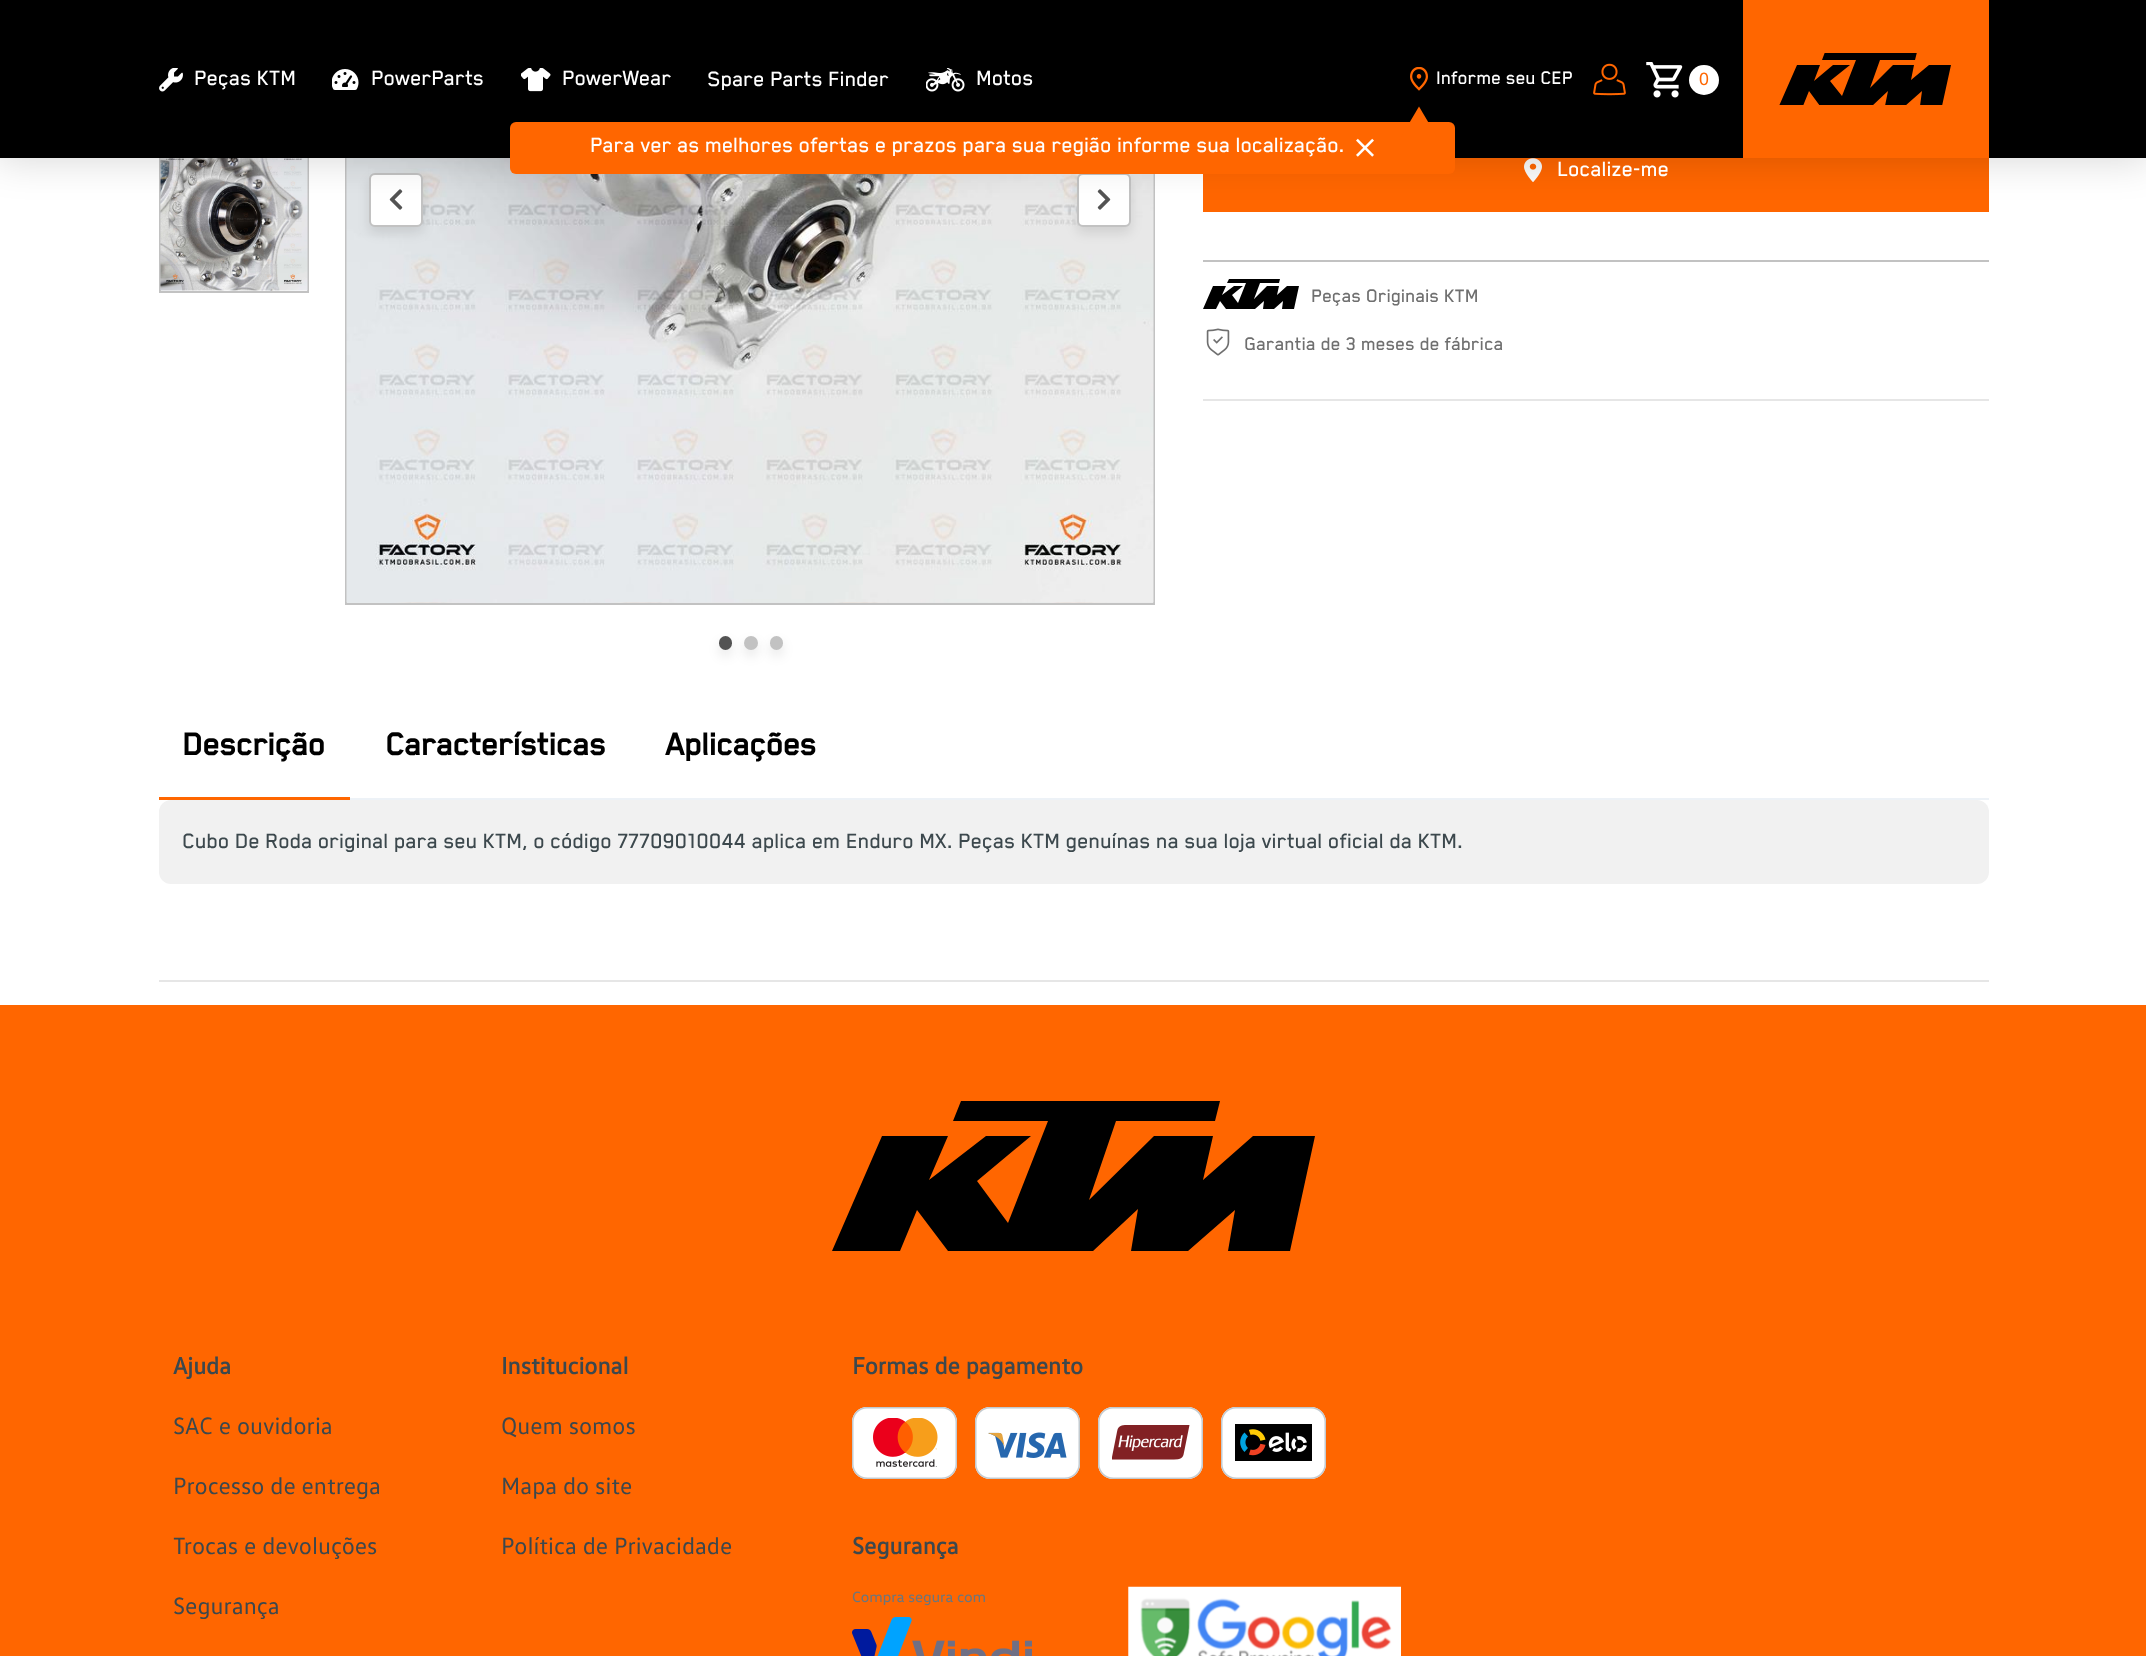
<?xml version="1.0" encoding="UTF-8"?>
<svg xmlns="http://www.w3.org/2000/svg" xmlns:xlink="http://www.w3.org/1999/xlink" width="2146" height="1656">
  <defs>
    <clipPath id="clip1"><rect x="1779" y="53" width="173" height="52" /></clipPath>
  </defs>
  <rect width="100%" height="100%" fill="#ffffff" />
  <rect x="160" y="144" width="148" height="148" fill="none" stroke="#c2c2c2" stroke-width="2" />
  <image x="160" y="158" width="148" height="133" xlink:href="image9.png" />
  <image x="347" y="602" width="806" height="1" xlink:href="image10.png" />
  <rect x="346" y="-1" width="808" height="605" fill="none" stroke="#c2c2c2" stroke-width="2" />
  <image x="346" y="158" width="808" height="445" xlink:href="image11.png" />
  <rect x="369" y="179" width="54" height="54" rx="6" fill="#000000" fill-opacity="0.1" filter="blur(6px)" />
  <rect x="370" y="174" width="52" height="52" rx="5" fill="#ffffff" stroke="#c2c2c2" stroke-width="2" />
  <image x="389" y="189" width="14" height="21" xlink:href="image12.png" />
  <rect x="1077" y="179" width="54" height="54" rx="6" fill="#000000" fill-opacity="0.1" filter="blur(6px)" />
  <rect x="1078" y="174" width="52" height="52" rx="5" fill="#ffffff" stroke="#c2c2c2" stroke-width="2" />
  <image x="1097" y="189" width="14" height="21" xlink:href="image13.png" />
  <rect x="1203" y="158" width="786" height="54" fill="#ff6600" />
  <image x="1524" y="158" width="18" height="24" xlink:href="image14.png" />
  <rect x="-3" y="-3" width="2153" height="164" fill="#000000" fill-opacity="0.15" filter="blur(19px)" />
  <rect width="2146" height="158" fill="#000000" />
  <image x="159" y="68" width="24" height="24" xlink:href="image1.png" />
  <image x="332" y="69" width="27" height="21" xlink:href="image2.png" />
  <image x="521" y="68" width="30" height="24" xlink:href="image3.png" />
  <image x="926" y="68" width="39" height="24" xlink:href="image4.png" />
  <image x="1410" y="67" width="18" height="24" xlink:href="image5.png" />
  <rect x="510" y="122" width="945" height="52" rx="6" fill="#ff6600" />
  <path d="M 1438.5 139.5 h -39 l 19.5 -33 z" fill="#ff6600" />
  <image x="1356" y="138" width="18" height="19" xlink:href="image6.png" />
  <image x="1593" y="63" width="33" height="33" xlink:href="image7.png" />
  <image x="1646" y="62" width="37" height="36" xlink:href="image8.png" />
  <circle cx="1704" cy="80" r="15" fill="#ffffff" />
  <rect x="1743" width="246" height="158" fill="#ff6600" />
  <g clip-path="url(#clip1)">
    <path d="M 1779 106 h 24 l 6 -15 l 11 15 h 52 l 16 -15 l -3 15 h 20 l 17 -15 l -2 15 h 22 l 9 -41 h -22 l -18 15 l 3 -15 h -21 l -23 23 l 10 -28 h 35 l 2 -8 h -92 l -3 8 h 34 l -14 36 l -12 -15 l 20 -16 h -17 l -19 16 l 6 -16 h -23 z" fill="#000000" />
  </g>
  <rect x="719" y="642" width="13" height="14" rx="6.5" fill="#000000" fill-opacity="0.1" filter="blur(6px)" />
  <rect x="719" y="636" width="13" height="14" rx="6.5" fill="#535353" />
  <rect x="744" y="642" width="14" height="14" rx="7" fill="#000000" fill-opacity="0.1" filter="blur(6px)" />
  <circle cx="751" cy="643" r="7" fill="#c2c2c2" />
  <rect x="770" y="642" width="13" height="14" rx="6.5" fill="#000000" fill-opacity="0.1" filter="blur(6px)" />
  <rect x="770" y="636" width="13" height="14" rx="6.5" fill="#c2c2c2" />
  <rect x="1203" y="260" width="786" height="2" fill="#c2c2c2" />
  <path d="M 1203 309 h 13 l 4 -8 l 6 8 h 29 l 9 -8 l -1 8 h 11 l 9 -8 l -1 8 h 12 l 5 -23 h -12 l -10 9 l 2 -9 h -12 l -13 13 l 6 -16 h 19 l 1 -4 h -51 l -2 4 h 19 l -8 20 l -6 -8 l 11 -9 h -9 l -12 9 l 4 -9 h -13 z" fill="#000000" />
  <image x="1206" y="328" width="24" height="28" xlink:href="image15.png" />
  <rect x="1203" y="399" width="786" height="2" fill="#e6e6e6" />
  <rect x="350" y="798" width="1639" height="2" fill="#edf2f7" />
  <rect x="159" y="797" width="191" height="3" fill="#ff6600" />
  <rect x="159" y="800" width="1830" height="84" rx="12" fill="#f1f1f1" />
  <rect x="159" y="980" width="1830" height="2" fill="#e6e6e6" />
  <rect y="1005" width="2146" height="651" fill="#ff6600" />
  <path d="M 832 1251 h 68 l 17 -41 l 31 41 h 145 l 45 -42 l -7 42 h 57 l 47 -41 l -7 41 h 62 l 25 -115 h -62 l -50 44 l 10 -44 h -59 l -65 64 l 27 -79 h 99 l 5 -20 h -259 l -8 20 h 95 l -40 102 l -31 -42 l 54 -45 h -45 l -57 44 l 19 -44 h -66 z" fill="#000000" />
  <image x="852" y="1407" width="105" height="72" xlink:href="image16.png" />
  <image x="975" y="1407" width="105" height="72" xlink:href="image17.png" />
  <image x="1098" y="1407" width="105" height="72" xlink:href="image18.png" />
  <image x="1221" y="1407" width="105" height="72" xlink:href="image19.png" />
  <image x="852" y="1591" width="180" height="65" xlink:href="image20.png" />
  <image x="1128" y="1586" width="273" height="70" xlink:href="image21.png" />
  <text x="194" y="85" style="font-family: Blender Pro; font-size: 24px; font-weight: 500; fill: #ffffff">Peças KTM</text>
  <text x="371" y="85" style="font-family: Blender Pro; font-size: 24px; font-weight: 500; fill: #ffffff">PowerParts</text>
  <text x="562" y="85" style="font-family: Blender Pro; font-size: 24px; font-weight: 500; fill: #ffffff">PowerWear</text>
  <text x="707" y="86" style="font-family: Blender Pro; font-size: 24px; font-weight: 500; fill: #ffffff">Spare Parts Finder</text>
  <text x="976" y="85" style="font-family: Blender Pro; font-size: 24px; font-weight: 500; fill: #ffffff">Motos</text>
  <text x="1436" y="84" style="font-family: Blender Pro; font-size: 21px; font-weight: 500; fill: #ffffff">Informe seu CEP</text>
  <text x="590" y="152" style="font-family: Blender Pro; font-size: 24px; font-weight: 500; fill: #ffffff">Para ver as melhores ofertas e prazos para sua região informe sua localização.</text>
  <text x="1699" y="85" style="font-family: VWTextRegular; font-size: 18px; fill: #ff6600">0</text>
  <text x="1557" y="176" style="font-family: Blender Pro; font-size: 24px; font-weight: 500; fill: #ffffff">Localize-me</text>
  <text x="1311" y="302" style="font-family: Blender Pro; font-size: 21px; font-weight: 500; fill: #6f6f6f">Peças Originais KTM</text>
  <text x="1244" y="350" style="font-family: Blender Pro; font-size: 21px; font-weight: 500; fill: #6f6f6f">Garantia de 3 meses de fábrica</text>
  <text x="182" y="755" style="font-family: Blender Pro; font-size: 36px; font-weight: bold; fill: #000000">Descrição</text>
  <text x="385" y="755" style="font-family: Blender Pro; font-size: 36px; font-weight: bold; fill: #000000">Características</text>
  <text x="665" y="755" style="font-family: Blender Pro; font-size: 36px; font-weight: bold; fill: #000000">Aplicações</text>
  <text x="182" y="848" style="font-family: Blender Pro; font-size: 24px; font-weight: 500; fill: #3c484d">Cubo De Roda original para seu KTM, o código 77709010044 aplica em Enduro MX. Peças KTM genuínas na sua loja virtual oficial da KTM.</text>
  <text x="173" y="1374" style="font-family: VWTextRegular; font-size: 24px; font-weight: bold; fill: #3c484d">Ajuda</text>
  <text x="173" y="1434" style="font-family: VWTextRegular; font-size: 24px; fill: #3c484d">SAC e ouvidoria</text>
  <text x="173" y="1494" style="font-family: VWTextRegular; font-size: 24px; fill: #3c484d">Processo de entrega</text>
  <text x="173" y="1554" style="font-family: VWTextRegular; font-size: 24px; fill: #3c484d">Trocas e devoluções</text>
  <text x="173" y="1614" style="font-family: VWTextRegular; font-size: 24px; fill: #3c484d">Segurança</text>
  <text x="501" y="1374" style="font-family: VWTextRegular; font-size: 24px; font-weight: bold; fill: #3c484d">Institucional</text>
  <text x="501" y="1434" style="font-family: VWTextRegular; font-size: 24px; fill: #3c484d">Quem somos</text>
  <text x="501" y="1494" style="font-family: VWTextRegular; font-size: 24px; fill: #3c484d">Mapa do site</text>
  <text x="501" y="1554" style="font-family: VWTextRegular; font-size: 24px; fill: #3c484d">Política de Privacidade</text>
  <text x="852" y="1374" style="font-family: VWTextRegular; font-size: 24px; font-weight: bold; fill: #3c484d">Formas de pagamento</text>
  <text x="852" y="1554" style="font-family: VWTextRegular; font-size: 24px; font-weight: bold; fill: #3c484d">Segurança</text>
</svg>
